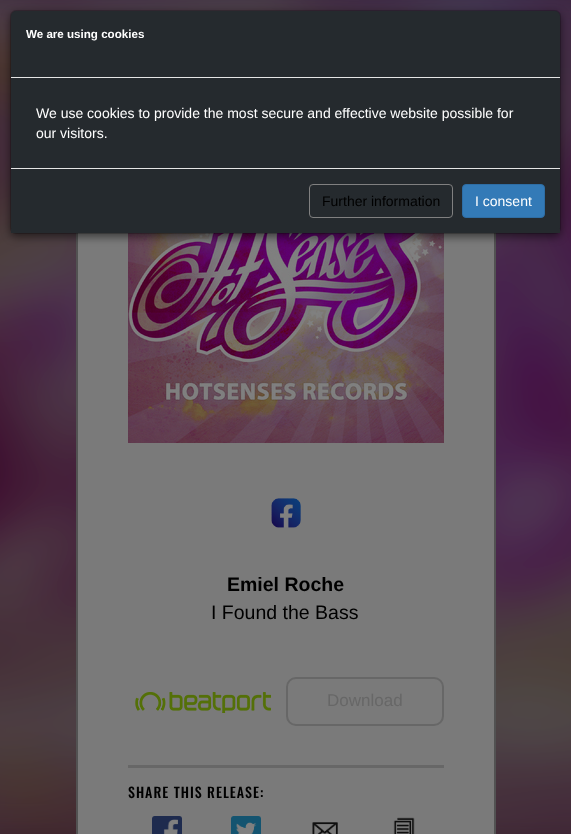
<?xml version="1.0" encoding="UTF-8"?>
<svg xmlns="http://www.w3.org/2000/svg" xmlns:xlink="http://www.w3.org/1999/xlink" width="571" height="834">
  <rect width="100%" height="100%" fill="#000000" />
  <image x="0" y="0" width="571" height="834" xlink:href="image1.png" />
  <rect x="76" y="233" width="420" height="601" fill="#7a7a7a" />
  <rect x="77" y="101" width="418" height="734" fill="none" stroke="#000000" stroke-opacity="0.32" stroke-width="2" />
  <image x="128" y="233" width="316" height="210" xlink:href="image2.png" />
  <rect x="10" y="13" width="551" height="224" rx="6" fill="#000000" fill-opacity="0.5" filter="blur(4.5px)" />
  <rect x="11" y="11" width="549" height="222" rx="5" fill="#252a2e" />
  <rect x="10.5" y="10.5" width="550" height="223" rx="5.5" fill="none" stroke="#000000" stroke-opacity="0.2" />
  <rect x="11" y="77" width="549" height="1" fill="#e5e5e5" />
  <rect x="11" y="229" width="549" height="4" fill="#252a2e" />
  <rect x="11" y="168" width="549" height="1" fill="#e5e5e5" />
  <rect x="309.5" y="184.5" width="143" height="33" rx="3.5" fill="none" stroke="#808080" />
  <rect x="462.5" y="184.5" width="82" height="33" rx="3.5" fill="#337ab7" stroke="#2e6da4" />
  <image x="271" y="498" width="30" height="30" xlink:href="image3.png" />
  <image x="135" y="692" width="136" height="21" xlink:href="image4.png" />
  <rect x="287" y="678" width="156" height="47" rx="9" fill="none" stroke="#676767" stroke-width="2" />
  <rect x="128" y="765" width="316" height="3" fill="#676767" />
  <image x="152" y="816" width="30" height="18" xlink:href="image5.png" />
  <image x="231" y="816" width="30" height="18" xlink:href="image6.png" />
  <image x="312" y="822" width="26" height="12" xlink:href="image7.png" />
  <image x="393" y="817" width="22" height="17" xlink:href="image8.png" />
  <text x="26" y="38" style="font-family: Liberation Sans; font-size: 11.6px; font-weight: bold; fill: #ffffff">We are using cookies</text>
  <text x="36" y="118" style="font-family: Liberation Sans; font-size: 14px; fill: #ffffff">We use cookies to provide the most secure and effective website possible for</text>
  <text x="36" y="138" style="font-family: Liberation Sans; font-size: 14px; fill: #ffffff">our visitors.</text>
  <text x="322" y="206" style="font-family: Liberation Sans; font-size: 14px; fill: #000000">Further information</text>
  <text x="475" y="206" style="font-family: Liberation Sans; font-size: 14px; fill: #ffffff">I consent</text>
  <text x="227" y="591" style="font-family: Liberation Sans; font-size: 19.5px; font-weight: bold; fill: #000000">Emiel Roche</text>
  <text x="211" y="619" style="font-family: Liberation Sans; font-size: 19.5px; fill: #000000">I Found the Bass</text>
  <text x="327" y="706" style="font-family: Liberation Sans; font-size: 17px; fill: #676767">Download</text>
  <text x="128" y="798" style="font-family: Oswald; font-size: 14px; font-weight: 500; letter-spacing: 1px; fill: #000000">SHARE THIS RELEASE:</text>
</svg>
